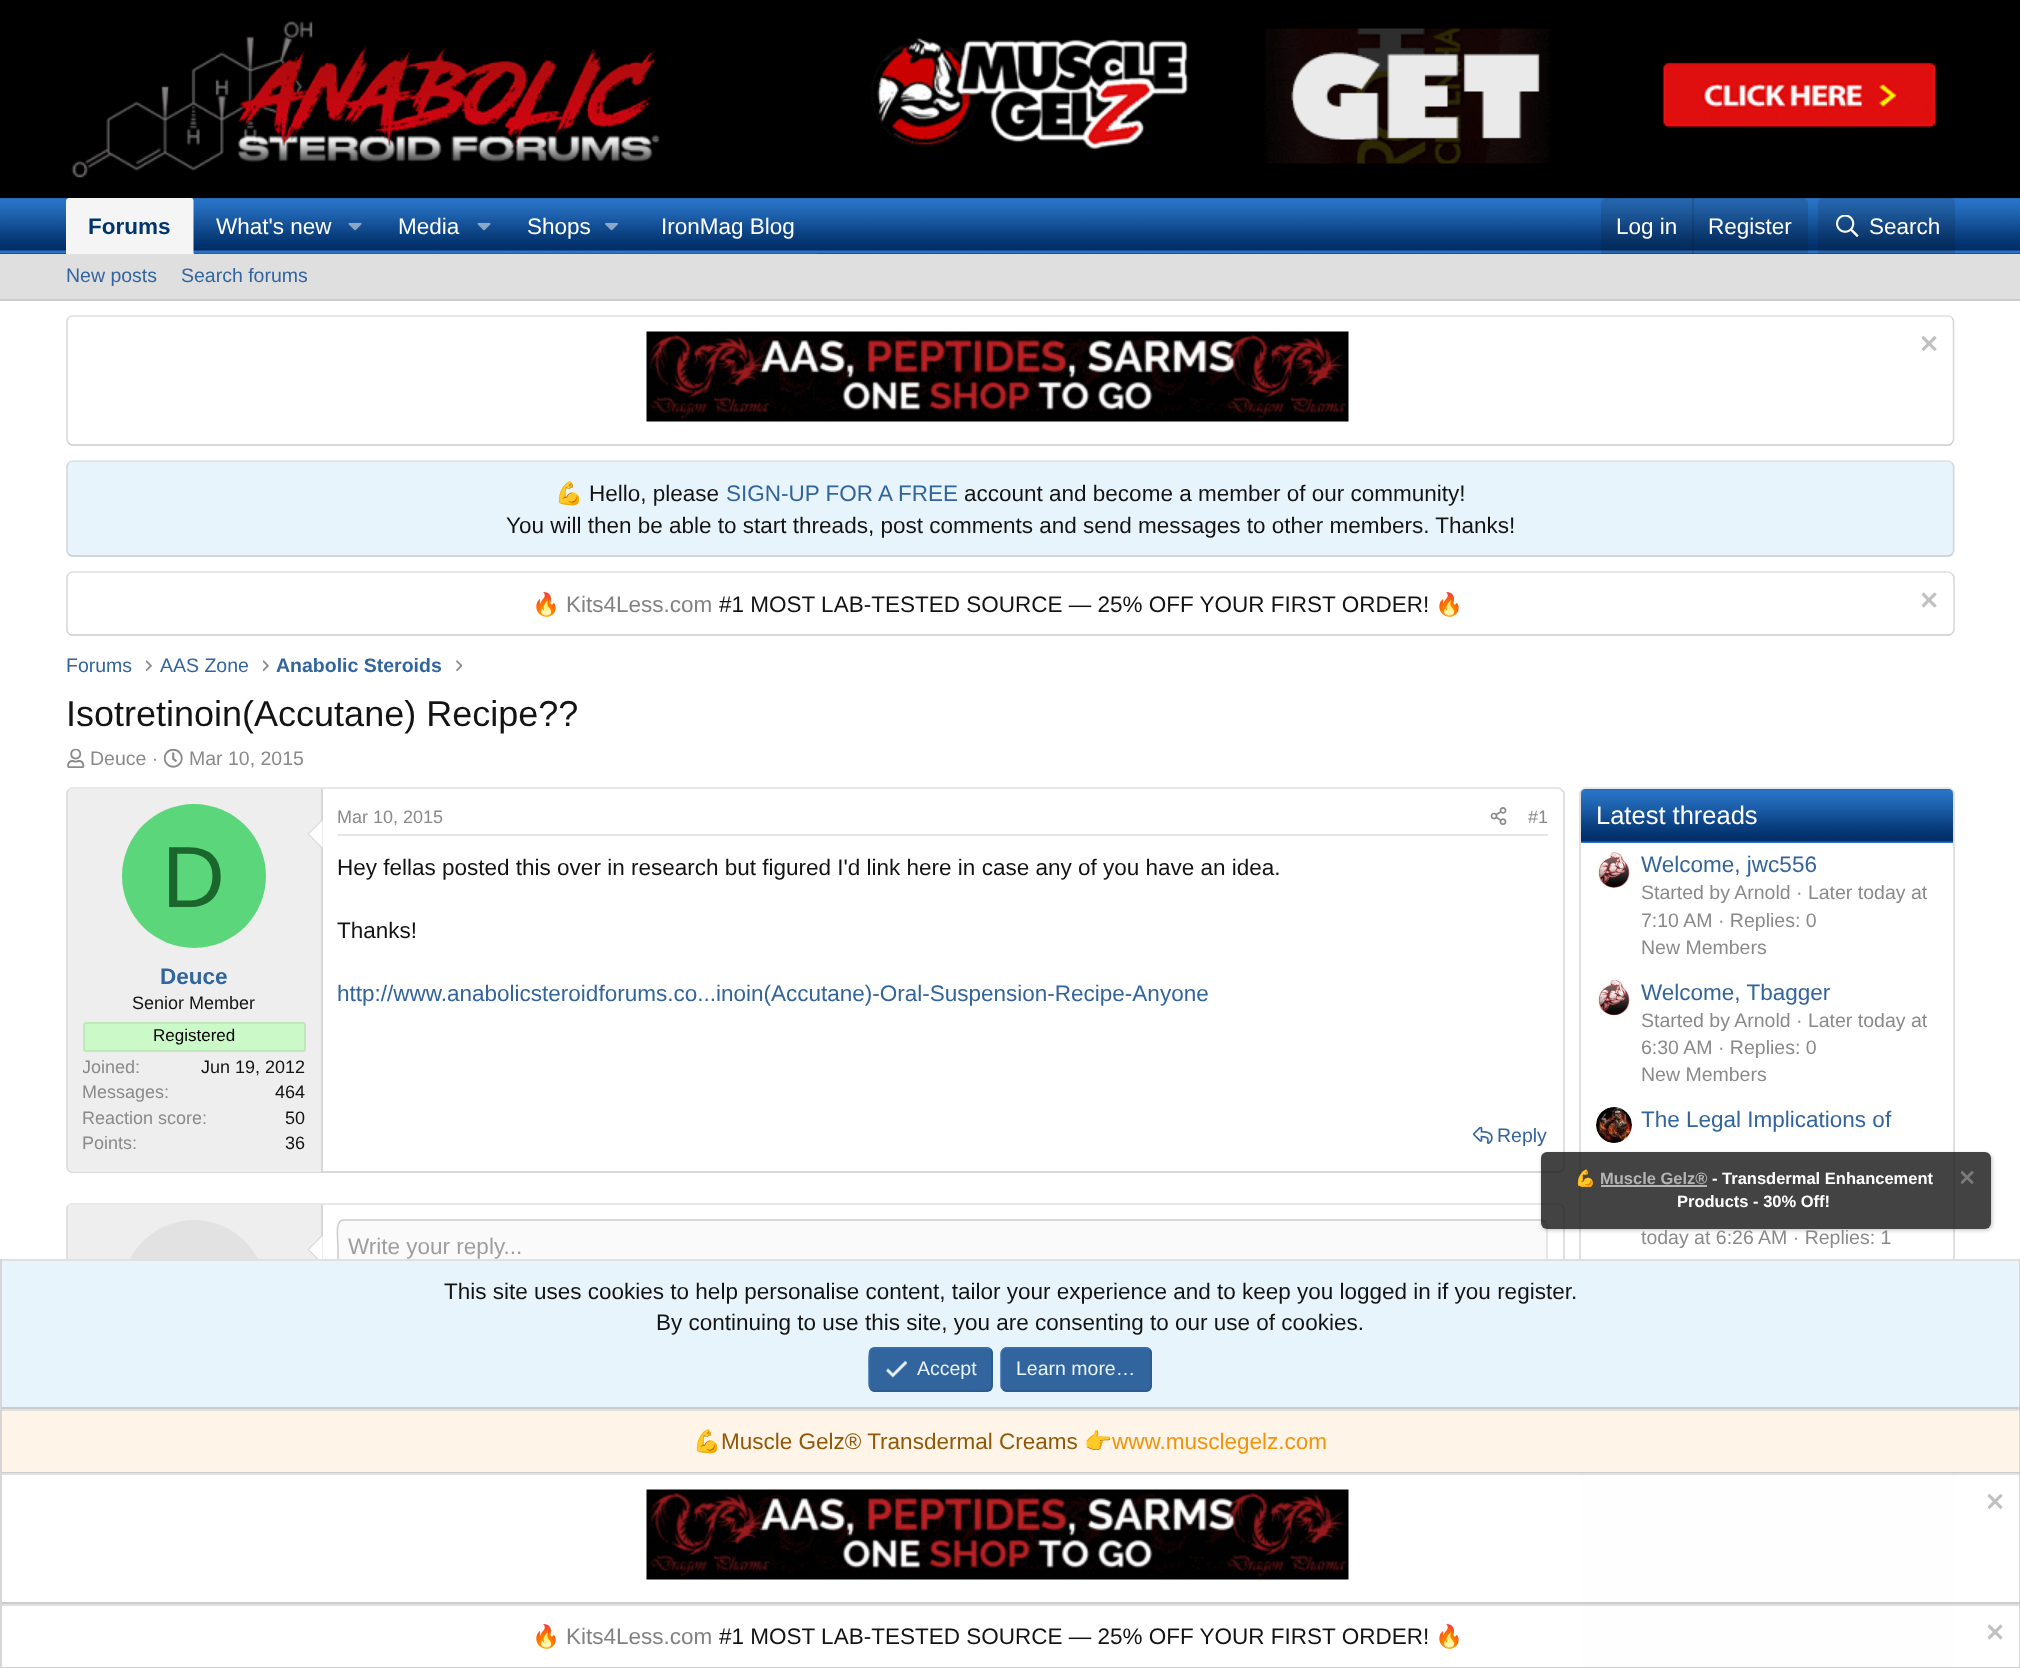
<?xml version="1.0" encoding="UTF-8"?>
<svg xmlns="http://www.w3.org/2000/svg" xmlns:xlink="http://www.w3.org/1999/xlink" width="2020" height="1668">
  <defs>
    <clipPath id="clip1"><path d="M 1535 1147 h 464 v 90 h -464 z m 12 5 h 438 c 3.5 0 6 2.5 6 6 v 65 c 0 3.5 -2.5 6 -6 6 h -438 c -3.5 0 -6 -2.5 -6 -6 v -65 c 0 -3.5 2.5 -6 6 -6 z" clip-rule="evenodd" /></clipPath>
    <clipPath id="clip2"><rect x="83" y="1056" width="223" height="24" /></clipPath>
  </defs>
  <rect width="100%" height="100%" fill="#ffffff" />
  <rect width="2020" height="198" fill="#000000" />
  <image x="71" y="21" width="589" height="157" xlink:href="image1.png" />
  <image x="871" y="28" width="1066" height="136" xlink:href="image2.png" />
  <rect y="253" width="2020" height="1" fill="#02346d" />
  <image x="0" y="198" width="2020" height="56" xlink:href="image3.png" />
  <path d="M 69 198 h 122 c 1.5 0 3 1.5 3 3 v 53 h -128 v -53 c 0 -1.5 1.5 -3 3 -3 z" fill="#f5f5f5" />
  <image x="193" y="199" width="184" height="55" xlink:href="image4.png" />
  <image x="348" y="222" width="14" height="9" xlink:href="image5.png" />
  <image x="376" y="253" width="128" height="1" xlink:href="image6.png" />
  <image x="477" y="222" width="14" height="9" xlink:href="image7.png" />
  <rect x="504" y="253" width="135" height="1" fill="#1f63af" />
  <image x="605" y="222" width="13" height="9" xlink:href="image8.png" />
  <image x="639" y="253" width="179" height="1" xlink:href="image9.png" />
  <path d="M 1607 198 h 195 c 3.5 0 6 2.5 6 6 v 50 h -207 v -50 c 0 -3.5 2.5 -6 6 -6 z" fill="#131313" fill-opacity="0.15" />
  <rect x="1692" y="198" width="2" height="56" fill="#131313" fill-opacity="0.15" />
  <path d="M 1824 198 h 125 c 3.5 0 6 2.5 6 6 v 50 h -137 v -50 c 0 -3.5 2.5 -6 6 -6 z" fill="#131313" fill-opacity="0.15" />
  <image x="1836" y="215" width="23" height="22" xlink:href="image10.png" />
  <rect y="254" width="2020" height="45" fill="#dfdfdf" />
  <rect y="299" width="2020" height="2" fill="#cccccc" />
  <path d="M 68.5 317.5 c 1 -1 2 -1.5 3.5 -1.5 h 1876.5 c 1.5 0 2.5 0.5 3.5 1.5" fill="none" stroke="#e0e0e0" stroke-width="1.5" />
  <path d="M 1952 317.5 l 1.5 3 v 119.5 l -1.5 3" fill="none" stroke="#d6d6d6" stroke-width="1.5" />
  <path d="M 1952 443 c -1 1 -2 2 -3.5 2 h -1876.5 c -1.5 0 -2.5 -1 -3.5 -2" fill="none" stroke="#cccccc" stroke-width="1.5" />
  <path d="M 68.5 443 l -1.5 -3 v -119.5 l 1.5 -3" fill="none" stroke="#d6d6d6" stroke-width="1.5" />
  <image x="646" y="331" width="703" height="91" xlink:href="image11.png" />
  <image x="1922" y="336" width="15" height="15" xlink:href="image12.png" />
  <rect x="66" y="461" width="1889" height="96" rx="6" fill="#e8f4fc" />
  <path d="M 68.5 463 c 1 -1 2 -2 3.5 -2 h 1876.5 c 1.5 0 2.5 1 3.5 2" fill="none" stroke="#e0e0e0" stroke-width="1.5" />
  <path d="M 1952 463 l 1.5 3 v 85 l -1.5 3" fill="none" stroke="#d6d6d6" stroke-width="1.5" />
  <path d="M 1952 554 c -1 1 -2 2 -3.5 2 h -1876.5 c -1.5 0 -2.5 -1 -3.5 -2" fill="none" stroke="#cccccc" stroke-width="1.5" />
  <path d="M 68.5 554 l -1.5 -3 v -85 l 1.5 -3" fill="none" stroke="#d6d6d6" stroke-width="1.5" />
  <path d="M 68.5 574 c 1 -1 2 -2 3.5 -2 h 1876.5 c 1.5 0 2.5 1 3.5 2" fill="none" stroke="#e0e0e0" stroke-width="1.5" />
  <path d="M 1952 574 c 1 1 2 2 2 3.5 v 52.5 c 0 1.5 -1 2.5 -2 3.5" fill="none" stroke="#d6d6d6" stroke-width="1.5" />
  <path d="M 1952 633.5 c -1 1 -2 1.5 -3.5 1.5 h -1876.5 c -1.5 0 -2.5 -0.5 -3.5 -1.5" fill="none" stroke="#cccccc" stroke-width="1.5" />
  <path d="M 68.5 633.5 c -1 -1 -1.5 -2 -1.5 -3.5 v -52.5 c 0 -1.5 0.5 -2.5 1.5 -3.5" fill="none" stroke="#d6d6d6" stroke-width="1.5" />
  <image x="1922" y="592" width="15" height="16" xlink:href="image13.png" />
  <image x="146" y="660" width="6" height="12" xlink:href="image14.png" />
  <image x="263" y="660" width="6" height="12" xlink:href="image14.png" />
  <image x="456" y="660" width="6" height="12" xlink:href="image15.png" />
  <image x="67" y="748" width="18" height="20" xlink:href="image16.png" />
  <image x="163" y="748" width="20" height="20" xlink:href="image17.png" />
  <path d="M 68.5 790 c 1 -1 2 -2 3.5 -2 h 1486.5 c 1.5 0 2.5 1 3.5 2" fill="none" stroke="#e0e0e0" stroke-width="1.5" />
  <path d="M 1562 790 c 1 1 2 2 2 3.5 v 373.5 c 0 1.5 -1 2.5 -2 3.5" fill="none" stroke="#d6d6d6" stroke-width="1.5" />
  <path d="M 1562 1170.5 c -1 1 -2 1.5 -3.5 1.5 h -1486.5 c -1.5 0 -2.5 -0.5 -3.5 -1.5" fill="none" stroke="#cccccc" stroke-width="1.5" />
  <path d="M 68.5 1170.5 c -1 -1 -1.5 -2 -1.5 -3.5 v -373.5 c 0 -1.5 0.5 -2.5 1.5 -3.5" fill="none" stroke="#d6d6d6" stroke-width="1.5" />
  <path d="M 73 789 h 250 v 383 h -250 c -3 0 -5 -2 -5 -5 v -373 c 0 -3 2 -5 5 -5 z" fill="#eeeeee" />
  <rect x="321" y="789" width="2" height="383" fill="#d6d6d6" />
  <path d="M 322.5 819 v 30 l -15 -15 z" fill="#d6d6d6" />
  <path d="M 322.5 820.5 v 27 l -13.5 -13.5 z" fill="#ffffff" />
  <circle cx="194" cy="876" r="72" fill="#5cd67a" />
  <rect x="84" y="1023" width="221" height="28" rx="2" fill="#ccf9c8" stroke="#bee8ba" stroke-width="2" />
  <rect x="338" y="834" width="1210" height="2" fill="#e5e5e5" />
  <image x="1490" y="807" width="17" height="18" xlink:href="image18.png" />
  <image x="1473" y="1127" width="20" height="17" xlink:href="image19.png" />
  <path d="M 68.5 1205.5 c 1 -1 2 -1.5 3.5 -1.5 h 1486.5 c 1.5 0 2.5 0.5 3.5 1.5" fill="none" stroke="#e0e0e0" stroke-width="1.5" />
  <path d="M 1562 1205.5 c 1 1 2 2 2 3.5 v 231 c 0 1.5 -1 2.5 -2 3.5" fill="none" stroke="#d6d6d6" stroke-width="1.5" />
  <path d="M 68.5 1443.5 c -1 -1 -1.5 -2 -1.5 -3.5 v -231 c 0 -1.5 0.5 -2.5 1.5 -3.5" fill="none" stroke="#d6d6d6" stroke-width="1.5" />
  <path d="M 73 1205 h 250 v 240 h -250 c -3 0 -5 -2 -5 -5 v -230 c 0 -3 2 -5 5 -5 z" fill="#eeeeee" />
  <rect x="321" y="1205" width="2" height="54" fill="#d6d6d6" />
  <circle cx="194" cy="1292" r="72" fill="#e2e2e2" />
  <path d="M 322.5 1234.5 v 30 l -15 -15 z" fill="#d6d6d6" />
  <path d="M 322.5 1236 v 27 l -13.5 -13.5 z" fill="#ffffff" />
  <rect x="338" y="1220" width="1210" height="150" rx="6" fill="#fafafa" />
  <path d="M 1545.5 1222 l 1.5 3 v 115.5 c 0 10 4 28 -5 28.5 h -1198.5 c -1.5 -0.5 -2.5 -1 -3.5 -2" fill="none" stroke="#e0e0e0" stroke-width="1.5" />
  <path d="M 340 1367 l -1.5 -3 l -0.5 -115.5 c 0 -10 -3.5 -28 5.5 -28.5 h 1198.5 c 1.5 0.5 2.5 1 3.5 2" fill="none" stroke="#cccccc" stroke-width="1.5" />
  <path d="M 1582 790 c 1 -1 2 -2 3.5 -2 h 363 c 1.5 0 2.5 1 3.5 2" fill="none" stroke="#e0e0e0" stroke-width="1.5" />
  <path d="M 1952 790 c 1 1 2 2 2 3.5 v 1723.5 c 0 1.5 -1 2.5 -2 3.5" fill="none" stroke="#d6d6d6" stroke-width="1.5" />
  <path d="M 1582 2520.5 c -1 -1 -2 -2 -2 -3.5 v -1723.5 c 0 -1.5 1 -2.5 2 -3.5" fill="none" stroke="#d6d6d6" stroke-width="1.5" />
  <image x="1581" y="789" width="372" height="54" xlink:href="image20.png" />
  <image x="1596" y="852" width="36" height="36" xlink:href="image21.png" />
  <image x="1596" y="979" width="36" height="37" xlink:href="image22.png" />
  <image x="1596" y="1107" width="36" height="36" xlink:href="image23.png" />
  <g clip-path="url(#clip1)">
    <rect x="1542" y="1154" width="450" height="76" rx="6" fill="#000000" fill-opacity="0.25" filter="blur(2px)" />
  </g>
  <rect x="1541" y="1152" width="450" height="77" rx="6" fill="#141414" fill-opacity="0.8" />
  <rect x="1601" y="1185" width="106" height="2" fill="#b4b4b4" />
  <image x="1961" y="1171" width="13" height="13" xlink:href="image24.png" />
  <rect x="2" y="1261" width="2017" height="146" fill="#e8f4fc" />
  <rect y="1259" width="2020" height="2" fill="#e0e0e0" />
  <rect x="2019" y="1259" width="1" height="150" fill="#d6d6d6" />
  <rect y="1407" width="2020" height="2" fill="#cccccc" />
  <rect y="1259" width="2" height="150" fill="#d6d6d6" />
  <rect x="869" y="1347" width="124" height="45" rx="6" fill="#32649d" />
  <path d="M 990.5 1349.5 c 2.5 2 1.5 6 1.5 9 v 11 c 0 25.5 3.5 21.5 -24 21.5 h -93.5 c -1.5 0 -2.5 -0.5 -3.5 -1.5" fill="none" stroke="#2c588a" stroke-width="1.5" />
  <path d="M 871 1389.5 c -2.5 -2 -2 -6 -2 -9 v -11 c 0 -25.5 -3 -21.5 24 -21.5 h 94 c 1.5 0 2.5 0.5 3.5 1.5" fill="none" stroke="#3870b0" stroke-width="1.5" />
  <image x="886" y="1360" width="21" height="18" xlink:href="image25.png" />
  <rect x="1001" y="1347" width="151" height="45" rx="6" fill="#32649d" />
  <path d="M 1149.5 1349.5 c 1 1 1.5 2 1.5 3.5 v 33 c 0 1.5 -0.5 2.5 -1.5 3.5 c -1 1 -2 1.5 -3.5 1.5 h -139.5 c -1.5 0 -2.5 -0.5 -3.5 -1.5" fill="none" stroke="#2c588a" stroke-width="1.5" />
  <path d="M 1003 1389.5 c -1 -1 -2 -2 -2 -3.5 v -33 c 0 -1.5 1 -2.5 2 -3.5 c 1 -1 2 -1.5 3.5 -1.5 h 139.5 c 1.5 0 2.5 0.5 3.5 1.5" fill="none" stroke="#3870b0" stroke-width="1.5" />
  <rect x="2" y="1411" width="2017" height="61" fill="#fef4e7" />
  <rect y="1409" width="2020" height="2" fill="#e0e0e0" />
  <rect x="2019" y="1409" width="1" height="64" fill="#d6d6d6" />
  <rect y="1472" width="2020" height="1" fill="#cccccc" />
  <rect y="1409" width="2" height="64" fill="#d6d6d6" />
  <rect x="1579" y="1475" width="376" height="127" fill="#fefefe" />
  <rect y="1473" width="2020" height="2" fill="#e0e0e0" />
  <rect x="2019" y="1473" width="1" height="131" fill="#d6d6d6" />
  <rect y="1602" width="2020" height="2" fill="#cccccc" />
  <rect y="1473" width="2" height="131" fill="#d6d6d6" />
  <image x="646" y="1489" width="703" height="91" xlink:href="image26.png" />
  <image x="1988" y="1494" width="15" height="15" xlink:href="image27.png" />
  <rect x="1579" y="1606" width="376" height="61" fill="#fefefe" />
  <rect y="1604" width="2020" height="2" fill="#e0e0e0" />
  <rect x="2019" y="1604" width="1" height="64" fill="#d6d6d6" />
  <rect y="1667" width="2020" height="1" fill="#cccccc" />
  <rect y="1604" width="2" height="64" fill="#d6d6d6" />
  <image x="1988" y="1624" width="15" height="16" xlink:href="image28.png" />
  <text x="88" y="234" style="font-family: Liberation Sans; font-size: 22.5px; font-weight: bold; fill: #02346d">Forums</text>
  <text x="216" y="234" style="font-family: Liberation Sans; font-size: 22.5px; fill: #ffffff">What's new</text>
  <text x="398" y="234" style="font-family: Liberation Sans; font-size: 22.5px; fill: #ffffff">Media</text>
  <text x="527" y="234" style="font-family: Liberation Sans; font-size: 22.5px; fill: #ffffff">Shops</text>
  <text x="661" y="234" style="font-family: Liberation Sans; font-size: 22.5px; fill: #ffffff">IronMag Blog</text>
  <text x="1616" y="234" style="font-family: Liberation Sans; font-size: 22.5px; fill: #ffffff">Log in</text>
  <text x="1708" y="234" style="font-family: Liberation Sans; font-size: 22.5px; fill: #ffffff">Register</text>
  <text x="1869" y="234" style="font-family: Liberation Sans; font-size: 22.5px; fill: #ffffff">Search</text>
  <text x="66" y="282" style="font-family: Liberation Sans; font-size: 19.5px; fill: #32649d">New posts</text>
  <text x="181" y="282" style="font-family: Liberation Sans; font-size: 19.5px; fill: #32649d">Search forums</text>
  <text x="555" y="501" style="font-family: Noto Color Emoji; font-size: 22.5px; fill: #131313">💪</text>
  <text x="589" y="501" style="font-family: Liberation Sans; font-size: 22.5px; fill: #131313">Hello, please</text>
  <text x="726" y="501" style="font-family: Liberation Sans; font-size: 22.5px; fill: #32649d">SIGN-UP FOR A FREE</text>
  <text x="964" y="501" style="font-family: Liberation Sans; font-size: 22.5px; fill: #131313">account and become a member of our community!</text>
  <text x="506" y="533" style="font-family: Liberation Sans; font-size: 22.5px; fill: #131313">You will then be able to start threads, post comments and send messages to other members. Thanks!</text>
  <text x="532" y="612" style="font-family: Noto Color Emoji; font-size: 22.5px; fill: #131313">🔥</text>
  <text x="566" y="612" style="font-family: Liberation Sans; font-size: 22.5px; fill: #828282">Kits4Less.com</text>
  <text x="719" y="612" style="font-family: Liberation Sans; font-size: 22.5px; fill: #131313">#1 MOST LAB-TESTED SOURCE — 25% OFF YOUR FIRST ORDER!</text>
  <text x="1435" y="612" style="font-family: Noto Color Emoji; font-size: 22.5px; fill: #131313">🔥</text>
  <text x="66" y="672" style="font-family: Liberation Sans; font-size: 19.5px; fill: #32649d">Forums</text>
  <text x="160" y="672" style="font-family: Liberation Sans; font-size: 19.5px; fill: #32649d">AAS Zone</text>
  <text x="276" y="672" style="font-family: Liberation Sans; font-size: 19.5px; font-weight: bold; fill: #32649d">Anabolic Steroids</text>
  <text x="66" y="726" style="font-family: Liberation Sans; font-size: 36px; fill: #131313">Isotretinoin(Accutane) Recipe??</text>
  <text x="90" y="765" style="font-family: Liberation Sans; font-size: 19.5px; fill: #8a8a8a">Deuce ·</text>
  <text x="189" y="765" style="font-family: Liberation Sans; font-size: 19.5px; fill: #8a8a8a">Mar 10, 2015</text>
  <text x="162" y="907" style="font-family: Liberation Sans; font-size: 87px; fill: #1a662d">D</text>
  <text x="160" y="984" style="font-family: Liberation Sans; font-size: 22.5px; font-weight: bold; fill: #32649d">Deuce</text>
  <text x="132" y="1009" style="font-family: Liberation Sans; font-size: 18px; fill: #131313">Senior Member</text>
  <text x="153" y="1041" style="font-family: Liberation Sans; font-size: 17px; fill: #000000">Registered</text>
  <g clip-path="url(#clip2)">
    <text x="82" y="1073" style="font-family: Liberation Sans; font-size: 18px; fill: #8a8a8a">Joined</text>
  </g>
  <text x="135" y="1073" style="font-family: Liberation Sans; font-size: 18px; fill: #8a8a8a">:</text>
  <text x="201" y="1073" style="font-family: Liberation Sans; font-size: 18px; fill: #131313">Jun 19, 2012</text>
  <text x="82" y="1098" style="font-family: Liberation Sans; font-size: 18px; fill: #8a8a8a">Messages:</text>
  <text x="275" y="1098" style="font-family: Liberation Sans; font-size: 18px; fill: #131313">464</text>
  <text x="82" y="1124" style="font-family: Liberation Sans; font-size: 18px; fill: #8a8a8a">Reaction score:</text>
  <text x="285" y="1124" style="font-family: Liberation Sans; font-size: 18px; fill: #131313">50</text>
  <text x="82" y="1149" style="font-family: Liberation Sans; font-size: 18px; fill: #8a8a8a">Points:</text>
  <text x="285" y="1149" style="font-family: Liberation Sans; font-size: 18px; fill: #131313">36</text>
  <text x="337" y="823" style="font-family: Liberation Sans; font-size: 18px; fill: #8a8a8a">Mar 10, 2015</text>
  <text x="1528" y="823" style="font-family: Liberation Sans; font-size: 18px; fill: #8a8a8a">#1</text>
  <text x="337" y="875" style="font-family: Liberation Sans; font-size: 22.5px; fill: #131313">Hey fellas posted this over in research but figured I'd link here in case any of you have an idea.</text>
  <text x="337" y="938" style="font-family: Liberation Sans; font-size: 22.5px; fill: #131313">Thanks!</text>
  <text x="337" y="1001" style="font-family: Liberation Sans; font-size: 22.5px; fill: #32649d">http://www.anabolicsteroidforums.co...inoin(Accutane)-Oral-Suspension-Recipe-Anyone</text>
  <text x="1497" y="1142" style="font-family: Liberation Sans; font-size: 19.5px; fill: #32649d">Reply</text>
  <text x="348" y="1254" style="font-family: Liberation Sans; font-size: 22.5px; fill: #9e9e9e">Write your reply...</text>
  <text x="1596" y="824" style="font-family: Liberation Sans; font-size: 25.5px; fill: #ffffff">Latest threads</text>
  <text x="1641" y="872" style="font-family: Liberation Sans; font-size: 22.5px; fill: #32649d">Welcome, jwc556</text>
  <text x="1641" y="899" style="font-family: Liberation Sans; font-size: 19.5px; fill: #8a8a8a">Started by Arnold · Later today at</text>
  <text x="1641" y="927" style="font-family: Liberation Sans; font-size: 19.5px; fill: #8a8a8a">7:10 AM · Replies: 0</text>
  <text x="1641" y="954" style="font-family: Liberation Sans; font-size: 19.5px; fill: #8a8a8a">New Members</text>
  <text x="1641" y="1000" style="font-family: Liberation Sans; font-size: 22.5px; fill: #32649d">Welcome, Tbagger</text>
  <text x="1641" y="1027" style="font-family: Liberation Sans; font-size: 19.5px; fill: #8a8a8a">Started by Arnold · Later today at</text>
  <text x="1641" y="1054" style="font-family: Liberation Sans; font-size: 19.5px; fill: #8a8a8a">6:30 AM · Replies: 0</text>
  <text x="1641" y="1081" style="font-family: Liberation Sans; font-size: 19.5px; fill: #8a8a8a">New Members</text>
  <text x="1641" y="1127" style="font-family: Liberation Sans; font-size: 22.5px; fill: #32649d">The Legal Implications of</text>
  <text x="1641" y="1244" style="font-family: Liberation Sans; font-size: 19.5px; fill: #8a8a8a">today at 6:26 AM · Replies: 1</text>
  <text x="1575" y="1184" style="font-family: Noto Color Emoji; font-size: 16.5px; fill: #ffffff">💪</text>
  <text x="1600" y="1184" style="font-family: Liberation Sans; font-size: 16.5px; font-weight: bold; fill: #b4b4b4">Muscle Gelz®</text>
  <text x="1712" y="1184" style="font-family: Liberation Sans; font-size: 16.5px; font-weight: bold; fill: #ffffff">- Transdermal Enhancement</text>
  <text x="1677" y="1207" style="font-family: Liberation Sans; font-size: 16.5px; font-weight: bold; fill: #ffffff">Products - 30% Off!</text>
  <text x="444" y="1299" style="font-family: Liberation Sans; font-size: 22.5px; fill: #131313">This site uses cookies to help personalise content, tailor your experience and to keep you logged in if you register.</text>
  <text x="656" y="1330" style="font-family: Liberation Sans; font-size: 22.5px; fill: #131313">By continuing to use this site, you are consenting to our use of cookies.</text>
  <text x="917" y="1375" style="font-family: Liberation Sans; font-size: 19.5px; fill: #e8f4fc">Accept</text>
  <text x="1016" y="1375" style="font-family: Liberation Sans; font-size: 19.5px; fill: #e8f4fc">Learn more…</text>
  <text x="693" y="1449" style="font-family: Noto Color Emoji; font-size: 22.5px; fill: #915808">💪</text>
  <text x="721" y="1449" style="font-family: Liberation Sans; font-size: 22.5px; fill: #915808">Muscle Gelz® Transdermal Creams</text>
  <text x="1084" y="1449" style="font-family: Noto Color Emoji; font-size: 22.5px; fill: #915808">👉</text>
  <text x="1112" y="1449" style="font-family: Liberation Sans; font-size: 22.5px; fill: #f2930d">www.musclegelz.com</text>
  <text x="532" y="1644" style="font-family: Noto Color Emoji; font-size: 22.5px; fill: #131313">🔥</text>
  <text x="566" y="1644" style="font-family: Liberation Sans; font-size: 22.5px; fill: #828282">Kits4Less.com</text>
  <text x="719" y="1644" style="font-family: Liberation Sans; font-size: 22.5px; fill: #131313">#1 MOST LAB-TESTED SOURCE — 25% OFF YOUR FIRST ORDER!</text>
  <text x="1435" y="1644" style="font-family: Noto Color Emoji; font-size: 22.5px; fill: #131313">🔥</text>
</svg>
